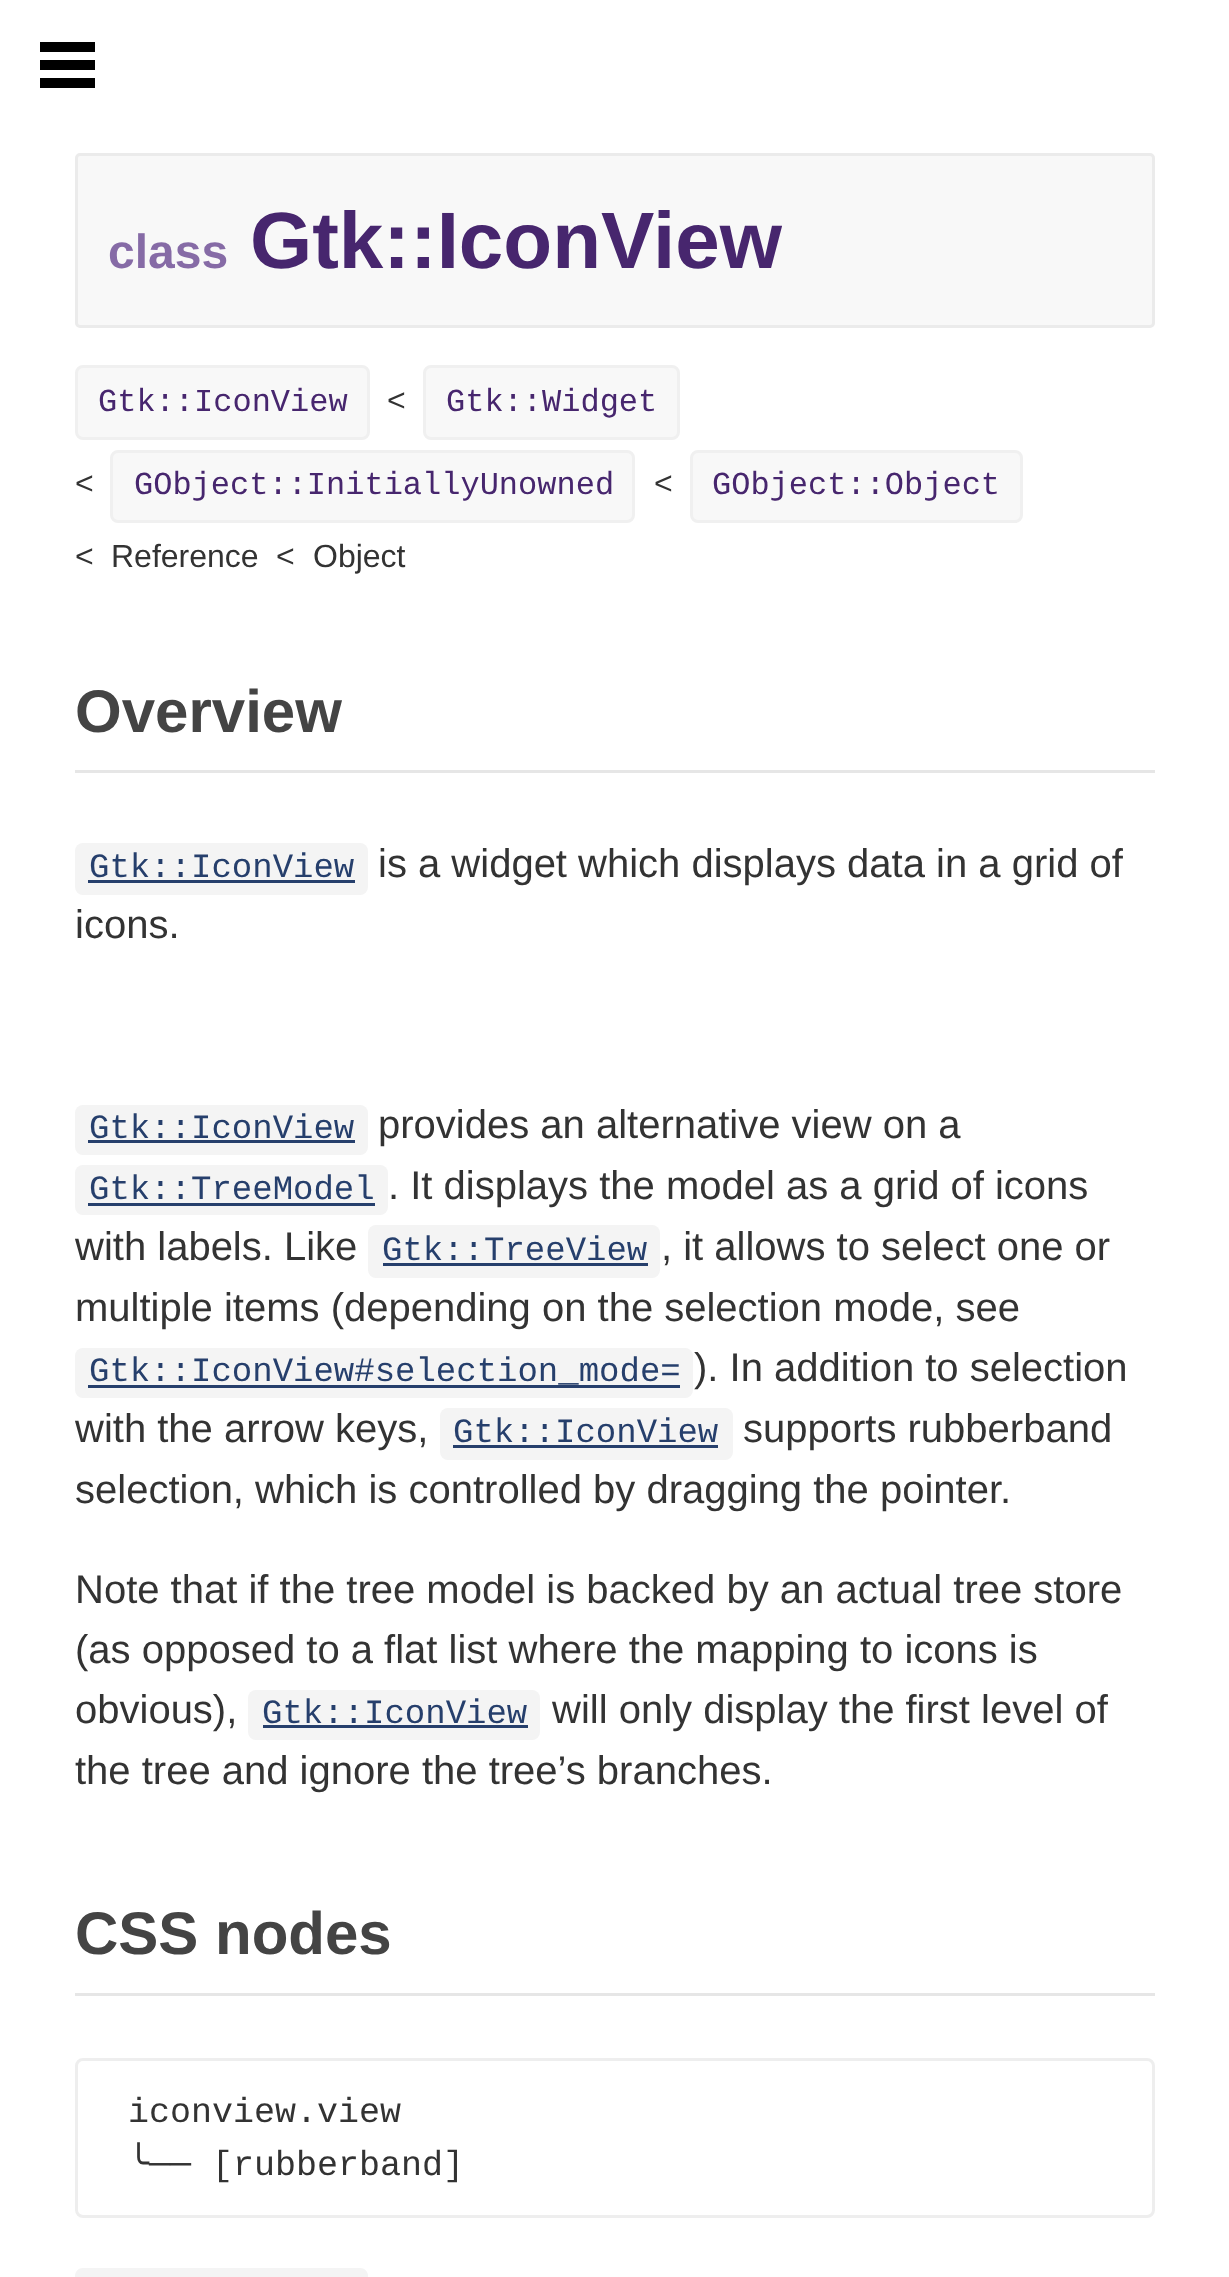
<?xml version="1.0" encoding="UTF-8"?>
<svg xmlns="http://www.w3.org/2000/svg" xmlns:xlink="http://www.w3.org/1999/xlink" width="1229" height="2277">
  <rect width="100%" height="100%" fill="#ffffff" />
  <path d="M 40 42 v 10 h 55 v -10 z m 0 18 v 10 h 55 v -10 z m 0 18 v 10 h 55 v -10 z" fill="#000000" />
  <rect x="76.5" y="154.5" width="1077" height="172" rx="3.5" fill="#f8f8f8" stroke="#ebebeb" stroke-width="3" />
  <rect x="76.5" y="366.5" width="292" height="72" rx="6.5" fill="#f8f8f8" stroke="#f0f0f0" stroke-width="3" />
  <rect x="424.5" y="366.5" width="254" height="72" rx="6.5" fill="#f8f8f8" stroke="#f0f0f0" stroke-width="3" />
  <rect x="111.5" y="451.5" width="522" height="70" rx="6.5" fill="#f8f8f8" stroke="#f0f0f0" stroke-width="3" />
  <rect x="691.5" y="451.5" width="330" height="70" rx="6.5" fill="#f8f8f8" stroke="#f0f0f0" stroke-width="3" />
  <rect x="75" y="770" width="1080" height="3" fill="#e6e6e6" />
  <rect x="75" y="843" width="293" height="52" rx="8" fill="#f4f4f4" />
  <rect x="88" y="880" width="267" height="3" fill="#263f6c" />
  <rect x="75" y="1105" width="293" height="50" rx="8" fill="#f4f4f4" />
  <rect x="88" y="1140" width="267" height="3" fill="#263f6c" />
  <rect x="75" y="1165" width="313" height="50" rx="8" fill="#f4f4f4" />
  <rect x="88" y="1203" width="287" height="3" fill="#263f6c" />
  <rect x="368" y="1225" width="292" height="53" rx="8" fill="#f4f4f4" />
  <rect x="383" y="1263" width="265" height="3" fill="#263f6c" />
  <rect x="75" y="1348" width="618" height="50" rx="8" fill="#f4f4f4" />
  <rect x="88" y="1385" width="592" height="3" fill="#263f6c" />
  <rect x="440" y="1408" width="293" height="52" rx="8" fill="#f4f4f4" />
  <rect x="453" y="1445" width="265" height="3" fill="#263f6c" />
  <rect x="248" y="1690" width="292" height="50" rx="8" fill="#f4f4f4" />
  <rect x="263" y="1725" width="265" height="3" fill="#263f6c" />
  <rect x="75" y="1993" width="1080" height="3" fill="#e6e6e6" />
  <rect x="76.5" y="2059.5" width="1077" height="157" rx="6.5" fill="none" stroke="#eeeeee" stroke-width="3" />
  <path d="M 83 2268 h 277 c 4.5 0 8 3.5 8 8 v 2 h -293 v -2 c 0 -4.5 3.5 -8 8 -8 z" fill="#f4f4f4" />
  <text x="108" y="268" style="font-family: Liberation Sans; font-size: 48px; font-weight: bold; fill: #866ba6">class</text>
  <text x="250" y="268" style="font-family: Liberation Sans; font-size: 80px; font-weight: bold; fill: #47266e">Gtk::IconView</text>
  <text x="98" y="411" style="font-family: Liberation Mono; font-size: 32px; fill: #47266e">Gtk::IconView</text>
  <text x="387" y="411" style="font-family: Liberation Sans; font-size: 32px; fill: #333333">&lt;</text>
  <text x="446" y="411" style="font-family: Liberation Mono; font-size: 32px; fill: #47266e">Gtk::Widget</text>
  <text x="75" y="494" style="font-family: Liberation Sans; font-size: 32px; fill: #333333">&lt;</text>
  <text x="134" y="494" style="font-family: Liberation Mono; font-size: 32px; fill: #47266e">GObject::InitiallyUnowned</text>
  <text x="654" y="494" style="font-family: Liberation Sans; font-size: 32px; fill: #333333">&lt;</text>
  <text x="712" y="494" style="font-family: Liberation Mono; font-size: 32px; fill: #47266e">GObject::Object</text>
  <text x="75" y="567" style="font-family: Liberation Sans; font-size: 32px; fill: #333333">&lt;</text>
  <text x="111" y="567" style="font-family: Liberation Sans; font-size: 32px; fill: #333333">Reference</text>
  <text x="276" y="567" style="font-family: Liberation Sans; font-size: 32px; fill: #333333">&lt;</text>
  <text x="313" y="567" style="font-family: Liberation Sans; font-size: 32px; fill: #333333">Object</text>
  <text x="75" y="732" style="font-family: Liberation Sans; font-size: 60px; font-weight: bold; fill: #444444">Overview</text>
  <text x="89" y="877" style="font-family: Liberation Mono; font-size: 34px; fill: #263f6c">Gtk::IconView</text>
  <text x="378" y="877" style="font-family: Liberation Sans; font-size: 40px; fill: #333333">is a widget which displays data in a grid of</text>
  <text x="75" y="938" style="font-family: Liberation Sans; font-size: 40px; fill: #333333">icons.</text>
  <text x="89" y="1138" style="font-family: Liberation Mono; font-size: 34px; fill: #263f6c">Gtk::IconView</text>
  <text x="378" y="1138" style="font-family: Liberation Sans; font-size: 40px; fill: #333333">provides an alternative view on a</text>
  <text x="89" y="1199" style="font-family: Liberation Mono; font-size: 34px; fill: #263f6c">Gtk::TreeModel</text>
  <text x="388" y="1199" style="font-family: Liberation Sans; font-size: 40px; fill: #333333">. It displays the model as a grid of icons</text>
  <text x="75" y="1260" style="font-family: Liberation Sans; font-size: 40px; fill: #333333">with labels. Like</text>
  <text x="382" y="1260" style="font-family: Liberation Mono; font-size: 34px; fill: #263f6c">Gtk::TreeView</text>
  <text x="661" y="1260" style="font-family: Liberation Sans; font-size: 40px; fill: #333333">, it allows to select one or</text>
  <text x="75" y="1321" style="font-family: Liberation Sans; font-size: 40px; fill: #333333">multiple items (depending on the selection mode, see</text>
  <text x="89" y="1381" style="font-family: Liberation Mono; font-size: 34px; fill: #263f6c">Gtk::IconView#selection_mode=</text>
  <text x="694" y="1381" style="font-family: Liberation Sans; font-size: 40px; fill: #333333">). In addition to selection</text>
  <text x="75" y="1442" style="font-family: Liberation Sans; font-size: 40px; fill: #333333">with the arrow keys,</text>
  <text x="453" y="1442" style="font-family: Liberation Mono; font-size: 34px; fill: #263f6c">Gtk::IconView</text>
  <text x="743" y="1442" style="font-family: Liberation Sans; font-size: 40px; fill: #333333">supports rubberband</text>
  <text x="75" y="1503" style="font-family: Liberation Sans; font-size: 40px; fill: #333333">selection, which is controlled by dragging the pointer.</text>
  <text x="75" y="1603" style="font-family: Liberation Sans; font-size: 40px; fill: #333333">Note that if the tree model is backed by an actual tree store</text>
  <text x="75" y="1663" style="font-family: Liberation Sans; font-size: 40px; fill: #333333">(as opposed to a flat list where the mapping to icons is</text>
  <text x="75" y="1723" style="font-family: Liberation Sans; font-size: 40px; fill: #333333">obvious),</text>
  <text x="262" y="1723" style="font-family: Liberation Mono; font-size: 34px; fill: #263f6c">Gtk::IconView</text>
  <text x="552" y="1723" style="font-family: Liberation Sans; font-size: 40px; fill: #333333">will only display the first level of</text>
  <text x="75" y="1784" style="font-family: Liberation Sans; font-size: 40px; fill: #333333">the tree and ignore the tree’s branches.</text>
  <text x="75" y="1954" style="font-family: Liberation Sans; font-size: 60px; font-weight: bold; fill: #444444">CSS nodes</text>
  <text x="128" y="2122" style="font-family: Liberation Mono; font-size: 35px; fill: #333333">iconview.view</text>
  <text x="128" y="2175" style="font-family: DejaVu Sans Mono; font-size: 35px; fill: #333333">╰</text>
  <text x="149" y="2175" style="font-family: Liberation Mono; font-size: 35px; fill: #333333">── [rubberband]</text>
</svg>
